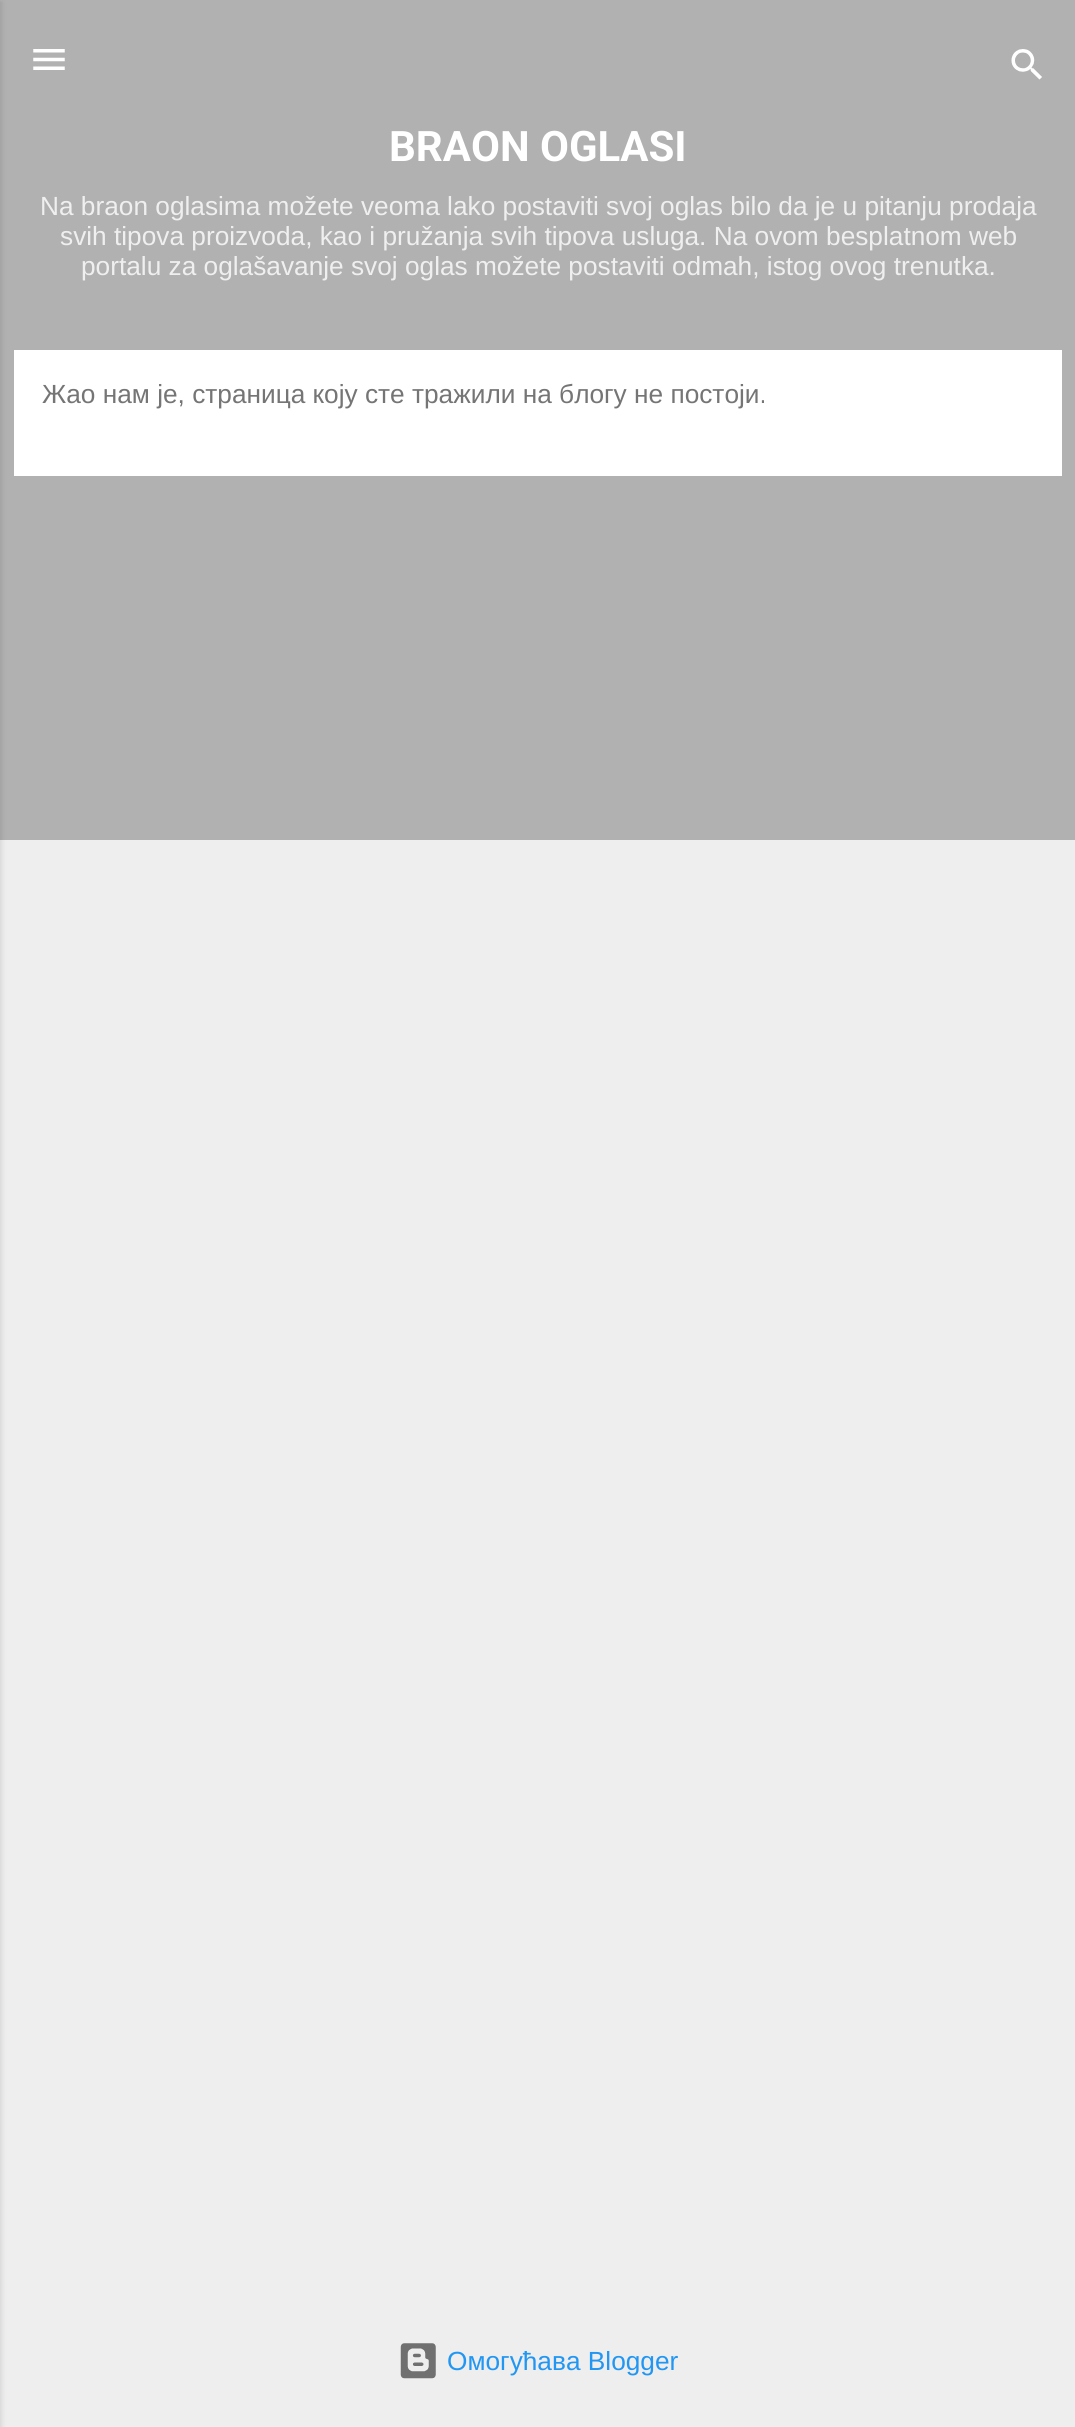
import math
import cairocffi as cairo

surface = cairo.ImageSurface(cairo.FORMAT_RGB24, 1075, 2427)
cr = cairo.Context(surface)
options = cairo.FontOptions()
options.set_hint_metrics(cairo.HINT_METRICS_OFF)
options.set_hint_style(cairo.HINT_STYLE_NONE)
cr.set_font_options(options)
cr.set_miter_limit(4)


def use_color(code):
    cr.set_source_rgb(*(v / 255 for v in bytes.fromhex(code[-6:])))


def round_rect(x, y, w, h, r):
    cr.new_sub_path()
    for i, (u, v) in enumerate([(x + w - r, y + h - r), (x + r, y + h - r), (x + r, y + r), (x + w - r, y + r)]):
        cr.arc(u, v, r, i * math.pi / 2, (i + 1) * math.pi / 2)
    cr.close_path()


def shadow(x, y, w, h, r, blur, alpha):
    cr.push_group_with_content(cairo.CONTENT_ALPHA)
    cr.set_operator(cairo.OPERATOR_SOURCE)
    for i in range(15, -16, -2):
        e = blur * i / 6
        if min(w, h) + 2 * e > 0:
            cr.set_source_rgba(0, 0, 0, alpha * math.erfc((i - 1) / 8.5) / 2)
            round_rect(x - e, y - e, w + 2 * e, h + 2 * e, max(0, min(r + e + blur * .6, min(w, h) / 2 + e)))
            cr.fill()
    cr.mask(cr.pop_group())


def picture(path, x, y, w, h):
    cr.save()
    cr.set_source_surface(cairo.ImageSurface.create_from_png(path), x, y)
    cr.rectangle(x, y, w, h)
    cr.fill()
    cr.restore()


use_color("#eeeeee")
cr.paint()
use_color("#b1b1b1")
cr.rectangle(0, 0, 1075, 840)
cr.fill()
use_color("#000000")
shadow(-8, 2, 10, 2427, 0, 2.5, 0.1)
picture("img1.png", 33, 49, 32, 21)
picture("img2.png", 1011, 49, 31, 31)
cr.select_font_face("Roboto", cairo.FONT_SLANT_NORMAL, cairo.FONT_WEIGHT_BOLD)
cr.set_font_size(42)
use_color("#ffffff")
cr.move_to(389, 161)
cr.show_text("BRAON OGLASI")
cr.select_font_face("Liberation Sans")
cr.set_font_size(26.25)
use_color("#efefef")
cr.move_to(40, 215)
cr.show_text("Na braon oglasima možete veoma lako postaviti svoj oglas bilo da je u pitanju prodaja")
cr.move_to(60, 245)
cr.show_text("svih tipova proizvoda, kao i pružanja svih tipova usluga. Na ovom besplatnom web")
cr.move_to(81, 275)
cr.show_text("portalu za oglašavanje svoj oglas možete postaviti odmah, istog ovog trenutka.")
use_color("#ffffff")
cr.rectangle(14, 350, 1048, 126)
cr.fill()
use_color("#757575")
cr.move_to(42, 403)
cr.show_text("Жао нам је, страница коју сте тражили на блогу не постоји.")
picture("img3.png", 400, 2343, 36, 36)
use_color("#2196f3")
cr.move_to(447, 2370)
cr.show_text("Омогућава Blogger")
surface.write_to_png("result.png")
